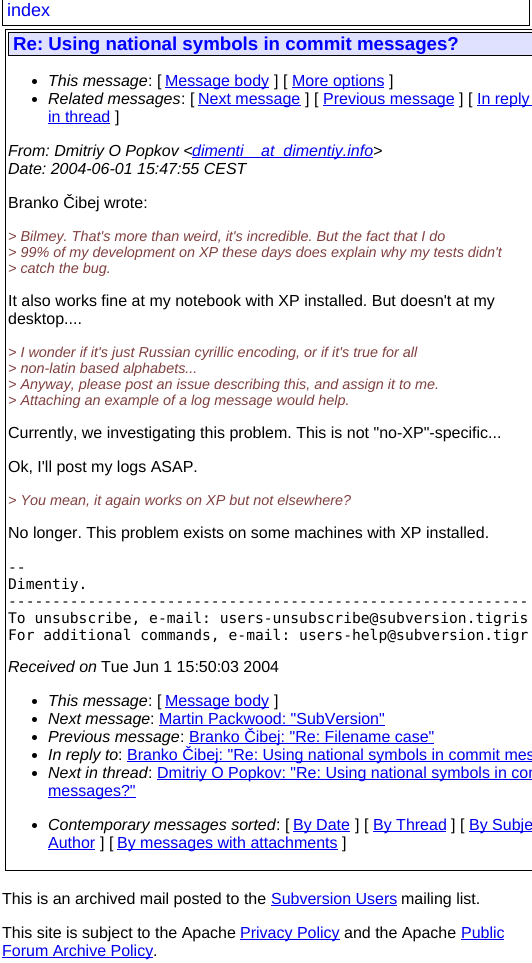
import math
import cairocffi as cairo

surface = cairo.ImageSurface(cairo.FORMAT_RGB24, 532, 963)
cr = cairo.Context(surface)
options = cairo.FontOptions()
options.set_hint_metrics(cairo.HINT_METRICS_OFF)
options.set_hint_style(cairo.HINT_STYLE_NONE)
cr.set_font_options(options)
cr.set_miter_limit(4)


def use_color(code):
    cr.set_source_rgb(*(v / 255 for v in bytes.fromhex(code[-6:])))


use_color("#ffffff")
cr.paint()
cr.rectangle(2.5, -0.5, 527, 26)
use_color("#000000")
cr.set_line_width(1)
cr.stroke()
cr.select_font_face("Liberation Sans")
cr.set_font_size(18)
use_color("#0000ee")
cr.move_to(7, 16)
cr.show_text("index")
cr.rectangle(5.5, 29.5, 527, 841)
use_color("#000000")
cr.stroke()
use_color("#e0e0ff")
cr.rectangle(8.5, 32.5, 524, 23)
cr.fill_preserve()
use_color("#000000")
cr.stroke()
cr.select_font_face("Liberation Sans", cairo.FONT_SLANT_NORMAL, cairo.FONT_WEIGHT_BOLD)
cr.set_font_size(18.7)
use_color("#0000ff")
cr.move_to(13, 50)
cr.show_text("Re: Using national symbols in commit messages?")
use_color("#000000")
cr.new_path()
cr.arc(34.5, 81.5, 2.5, 0, 2 * math.pi)
cr.fill()
cr.select_font_face("Liberation Sans", cairo.FONT_SLANT_ITALIC)
cr.set_font_size(16)
cr.move_to(48, 86)
cr.show_text("This message")
cr.select_font_face("Liberation Sans")
cr.move_to(148, 86)
cr.show_text(": [")
use_color("#0000ee")
cr.rectangle(165, 87, 104, 1)
cr.fill()
cr.move_to(165, 86)
cr.show_text("Message body")
use_color("#000000")
cr.move_to(274, 86)
cr.show_text("] [")
use_color("#0000ee")
cr.rectangle(292, 87, 92, 1)
cr.fill()
cr.move_to(292, 86)
cr.show_text("More options")
use_color("#000000")
cr.move_to(389, 86)
cr.show_text("]")
cr.new_path()
cr.arc(34.5, 99.5, 2.5, 0, 2 * math.pi)
cr.fill()
cr.select_font_face("Liberation Sans", cairo.FONT_SLANT_ITALIC)
cr.move_to(48, 104)
cr.show_text("Related messages")
cr.select_font_face("Liberation Sans")
cr.move_to(181, 104)
cr.show_text(": [")
use_color("#0000ee")
cr.rectangle(198, 105, 103, 1)
cr.fill()
cr.move_to(198, 104)
cr.show_text("Next message")
use_color("#000000")
cr.move_to(305, 104)
cr.show_text("] [")
use_color("#0000ee")
cr.rectangle(323, 105, 131, 1)
cr.fill()
cr.move_to(323, 104)
cr.show_text("Previous message")
use_color("#000000")
cr.move_to(459, 104)
cr.show_text("] [")
use_color("#0000ee")
cr.rectangle(477, 105, 55, 1)
cr.fill()
cr.move_to(477, 104)
cr.show_text("In reply")
cr.move_to(48, 122)
cr.show_text("in thread")
cr.rectangle(48, 123, 62, 1)
cr.fill()
use_color("#000000")
cr.move_to(115, 122)
cr.show_text("]")
cr.select_font_face("Liberation Sans", cairo.FONT_SLANT_ITALIC)
cr.move_to(8, 156)
cr.show_text("From: Dmitriy O Popkov <")
use_color("#0000ee")
cr.rectangle(192, 157, 181, 1)
cr.fill()
cr.move_to(192, 156)
cr.show_text("dimenti")
cr.move_to(261, 156)
cr.show_text("at_dimentiy.info")
use_color("#000000")
cr.move_to(373, 156)
cr.show_text(">")
cr.move_to(8, 174)
cr.show_text("Date: 2004-06-01 15:47:55 CEST")
cr.select_font_face("Liberation Sans")
cr.move_to(8, 208)
cr.show_text("Branko Čibej wrote:")
cr.select_font_face("Liberation Sans", cairo.FONT_SLANT_ITALIC)
cr.set_font_size(14.4)
use_color("#804040")
cr.move_to(8, 241)
cr.show_text("> Bilmey. That's more than weird, it's incredible. But the fact that I do")
cr.move_to(8, 257)
cr.show_text("> 99% of my development on XP these days does explain why my tests didn't")
cr.move_to(8, 273)
cr.show_text("> catch the bug.")
cr.select_font_face("Liberation Sans")
cr.set_font_size(16)
use_color("#000000")
cr.move_to(8, 306)
cr.show_text("It also works fine at my notebook with XP installed. But doesn't at my")
cr.move_to(8, 324)
cr.show_text("desktop....")
cr.select_font_face("Liberation Sans", cairo.FONT_SLANT_ITALIC)
cr.set_font_size(14.4)
use_color("#804040")
cr.move_to(8, 357)
cr.show_text("> I wonder if it's just Russian cyrillic encoding, or if it's true for all")
cr.move_to(8, 373)
cr.show_text("> non-latin based alphabets...")
cr.move_to(8, 389)
cr.show_text("> Anyway, please post an issue describing this, and assign it to me.")
cr.move_to(8, 405)
cr.show_text("> Attaching an example of a log message would help.")
cr.select_font_face("Liberation Sans")
cr.set_font_size(16)
use_color("#000000")
cr.move_to(8, 438)
cr.show_text("Currently, we investigating this problem. This is not \"no-XP\"-specific...")
cr.move_to(8, 472)
cr.show_text("Ok, I'll post my logs ASAP.")
cr.select_font_face("Liberation Sans", cairo.FONT_SLANT_ITALIC)
cr.set_font_size(14.4)
use_color("#804040")
cr.move_to(8, 505)
cr.show_text("> You mean, it again works on XP but not elsewhere?")
cr.select_font_face("Liberation Sans")
cr.set_font_size(16)
use_color("#000000")
cr.move_to(8, 538)
cr.show_text("No longer. This problem exists on some machines with XP installed.")
cr.select_font_face("DejaVu Sans Mono")
cr.set_font_size(14.65)
cr.move_to(8, 572)
cr.show_text("--")
cr.move_to(8, 589)
cr.show_text("Dimentiy.")
cr.move_to(8, 606)
cr.show_text("-----------------------------------------------------------")
cr.move_to(8, 623)
cr.show_text("To unsubscribe, e-mail: users-unsubscribe@subversion.tigris")
cr.move_to(8, 640)
cr.show_text("For additional commands, e-mail: users-help@subversion.tigr")
cr.select_font_face("Liberation Sans", cairo.FONT_SLANT_ITALIC)
cr.set_font_size(16)
cr.move_to(8, 672)
cr.show_text("Received on")
cr.select_font_face("Liberation Sans")
cr.move_to(101, 672)
cr.show_text("Tue Jun 1 15:50:03 2004")
cr.new_path()
cr.arc(34.5, 701.5, 2.5, 0, 2 * math.pi)
cr.fill()
cr.select_font_face("Liberation Sans", cairo.FONT_SLANT_ITALIC)
cr.move_to(48, 706)
cr.show_text("This message")
cr.select_font_face("Liberation Sans")
cr.move_to(148, 706)
cr.show_text(": [")
use_color("#0000ee")
cr.rectangle(165, 707, 104, 1)
cr.fill()
cr.move_to(165, 706)
cr.show_text("Message body")
use_color("#000000")
cr.move_to(274, 706)
cr.show_text("]")
cr.new_path()
cr.arc(34.5, 719.5, 2.5, 0, 2 * math.pi)
cr.fill()
cr.select_font_face("Liberation Sans", cairo.FONT_SLANT_ITALIC)
cr.move_to(48, 724)
cr.show_text("Next message")
cr.select_font_face("Liberation Sans")
cr.move_to(150, 724)
cr.show_text(":")
use_color("#0000ee")
cr.move_to(159, 724)
cr.show_text("Martin Packwood: \"SubVersion\"")
cr.rectangle(159, 725, 226, 1)
cr.fill()
use_color("#000000")
cr.arc(34.5, 737.5, 2.5, 0, 2 * math.pi)
cr.fill()
cr.select_font_face("Liberation Sans", cairo.FONT_SLANT_ITALIC)
cr.move_to(48, 742)
cr.show_text("Previous message")
cr.select_font_face("Liberation Sans")
cr.move_to(180, 742)
cr.show_text(":")
use_color("#0000ee")
cr.rectangle(189, 743, 245, 1)
cr.fill()
cr.move_to(189, 742)
cr.show_text("Branko Čibej: \"Re: Filename case\"")
use_color("#000000")
cr.new_path()
cr.arc(34.5, 755.5, 2.5, 0, 2 * math.pi)
cr.fill()
cr.select_font_face("Liberation Sans", cairo.FONT_SLANT_ITALIC)
cr.move_to(48, 760)
cr.show_text("In reply to")
cr.select_font_face("Liberation Sans")
cr.move_to(118, 760)
cr.show_text(":")
use_color("#0000ee")
cr.rectangle(127, 761, 405, 1)
cr.fill()
cr.move_to(127, 760)
cr.show_text("Branko Čibej: \"Re: Using national symbols in commit mes")
use_color("#000000")
cr.new_path()
cr.arc(34.5, 773.5, 2.5, 0, 2 * math.pi)
cr.fill()
cr.select_font_face("Liberation Sans", cairo.FONT_SLANT_ITALIC)
cr.move_to(48, 778)
cr.show_text("Next in thread")
cr.select_font_face("Liberation Sans")
cr.move_to(148, 778)
cr.show_text(":")
use_color("#0000ee")
cr.rectangle(157, 779, 375, 1)
cr.fill()
cr.move_to(157, 778)
cr.show_text("Dmitriy O Popkov: \"Re: Using national symbols in com")
cr.rectangle(48, 797, 88, 1)
cr.fill()
cr.move_to(48, 796)
cr.show_text("messages?\"")
use_color("#000000")
cr.new_path()
cr.arc(34.5, 825.5, 2.5, 0, 2 * math.pi)
cr.fill()
cr.select_font_face("Liberation Sans", cairo.FONT_SLANT_ITALIC)
cr.move_to(48, 830)
cr.show_text("Contemporary messages sorted")
cr.select_font_face("Liberation Sans")
cr.move_to(276, 830)
cr.show_text(": [")
use_color("#0000ee")
cr.rectangle(293, 831, 57, 1)
cr.fill()
cr.move_to(293, 830)
cr.show_text("By Date")
use_color("#000000")
cr.move_to(355, 830)
cr.show_text("] [")
use_color("#0000ee")
cr.rectangle(373, 831, 73, 1)
cr.fill()
cr.move_to(373, 830)
cr.show_text("By Thread")
use_color("#000000")
cr.move_to(451, 830)
cr.show_text("] [")
use_color("#0000ee")
cr.rectangle(469, 831, 63, 1)
cr.fill()
cr.move_to(469, 830)
cr.show_text("By Subje")
cr.move_to(48, 848)
cr.show_text("Author")
cr.rectangle(48, 849, 47, 1)
cr.fill()
use_color("#000000")
cr.move_to(100, 848)
cr.show_text("] [")
use_color("#0000ee")
cr.rectangle(117, 849, 221, 1)
cr.fill()
cr.move_to(117, 848)
cr.show_text("By messages with attachments")
use_color("#000000")
cr.move_to(342, 848)
cr.show_text("]")
cr.move_to(2, 904)
cr.show_text("This is an archived mail posted to the")
use_color("#0000ee")
cr.move_to(271, 904)
cr.show_text("Subversion Users")
cr.rectangle(271, 905, 126, 1)
cr.fill()
use_color("#000000")
cr.move_to(401, 904)
cr.show_text("mailing list.")
cr.move_to(2, 938)
cr.show_text("This site is subject to the Apache")
use_color("#0000ee")
cr.rectangle(240, 939, 100, 1)
cr.fill()
cr.move_to(240, 938)
cr.show_text("Privacy Policy")
use_color("#000000")
cr.move_to(344, 938)
cr.show_text("and the Apache")
use_color("#0000ee")
cr.move_to(461, 938)
cr.show_text("Public")
cr.rectangle(461, 939, 43, 1)
cr.fill()
cr.rectangle(2, 957, 151, 1)
cr.fill()
cr.move_to(2, 956)
cr.show_text("Forum Archive Policy")
use_color("#000000")
cr.move_to(153, 956)
cr.show_text(".")
surface.write_to_png("result.png")
